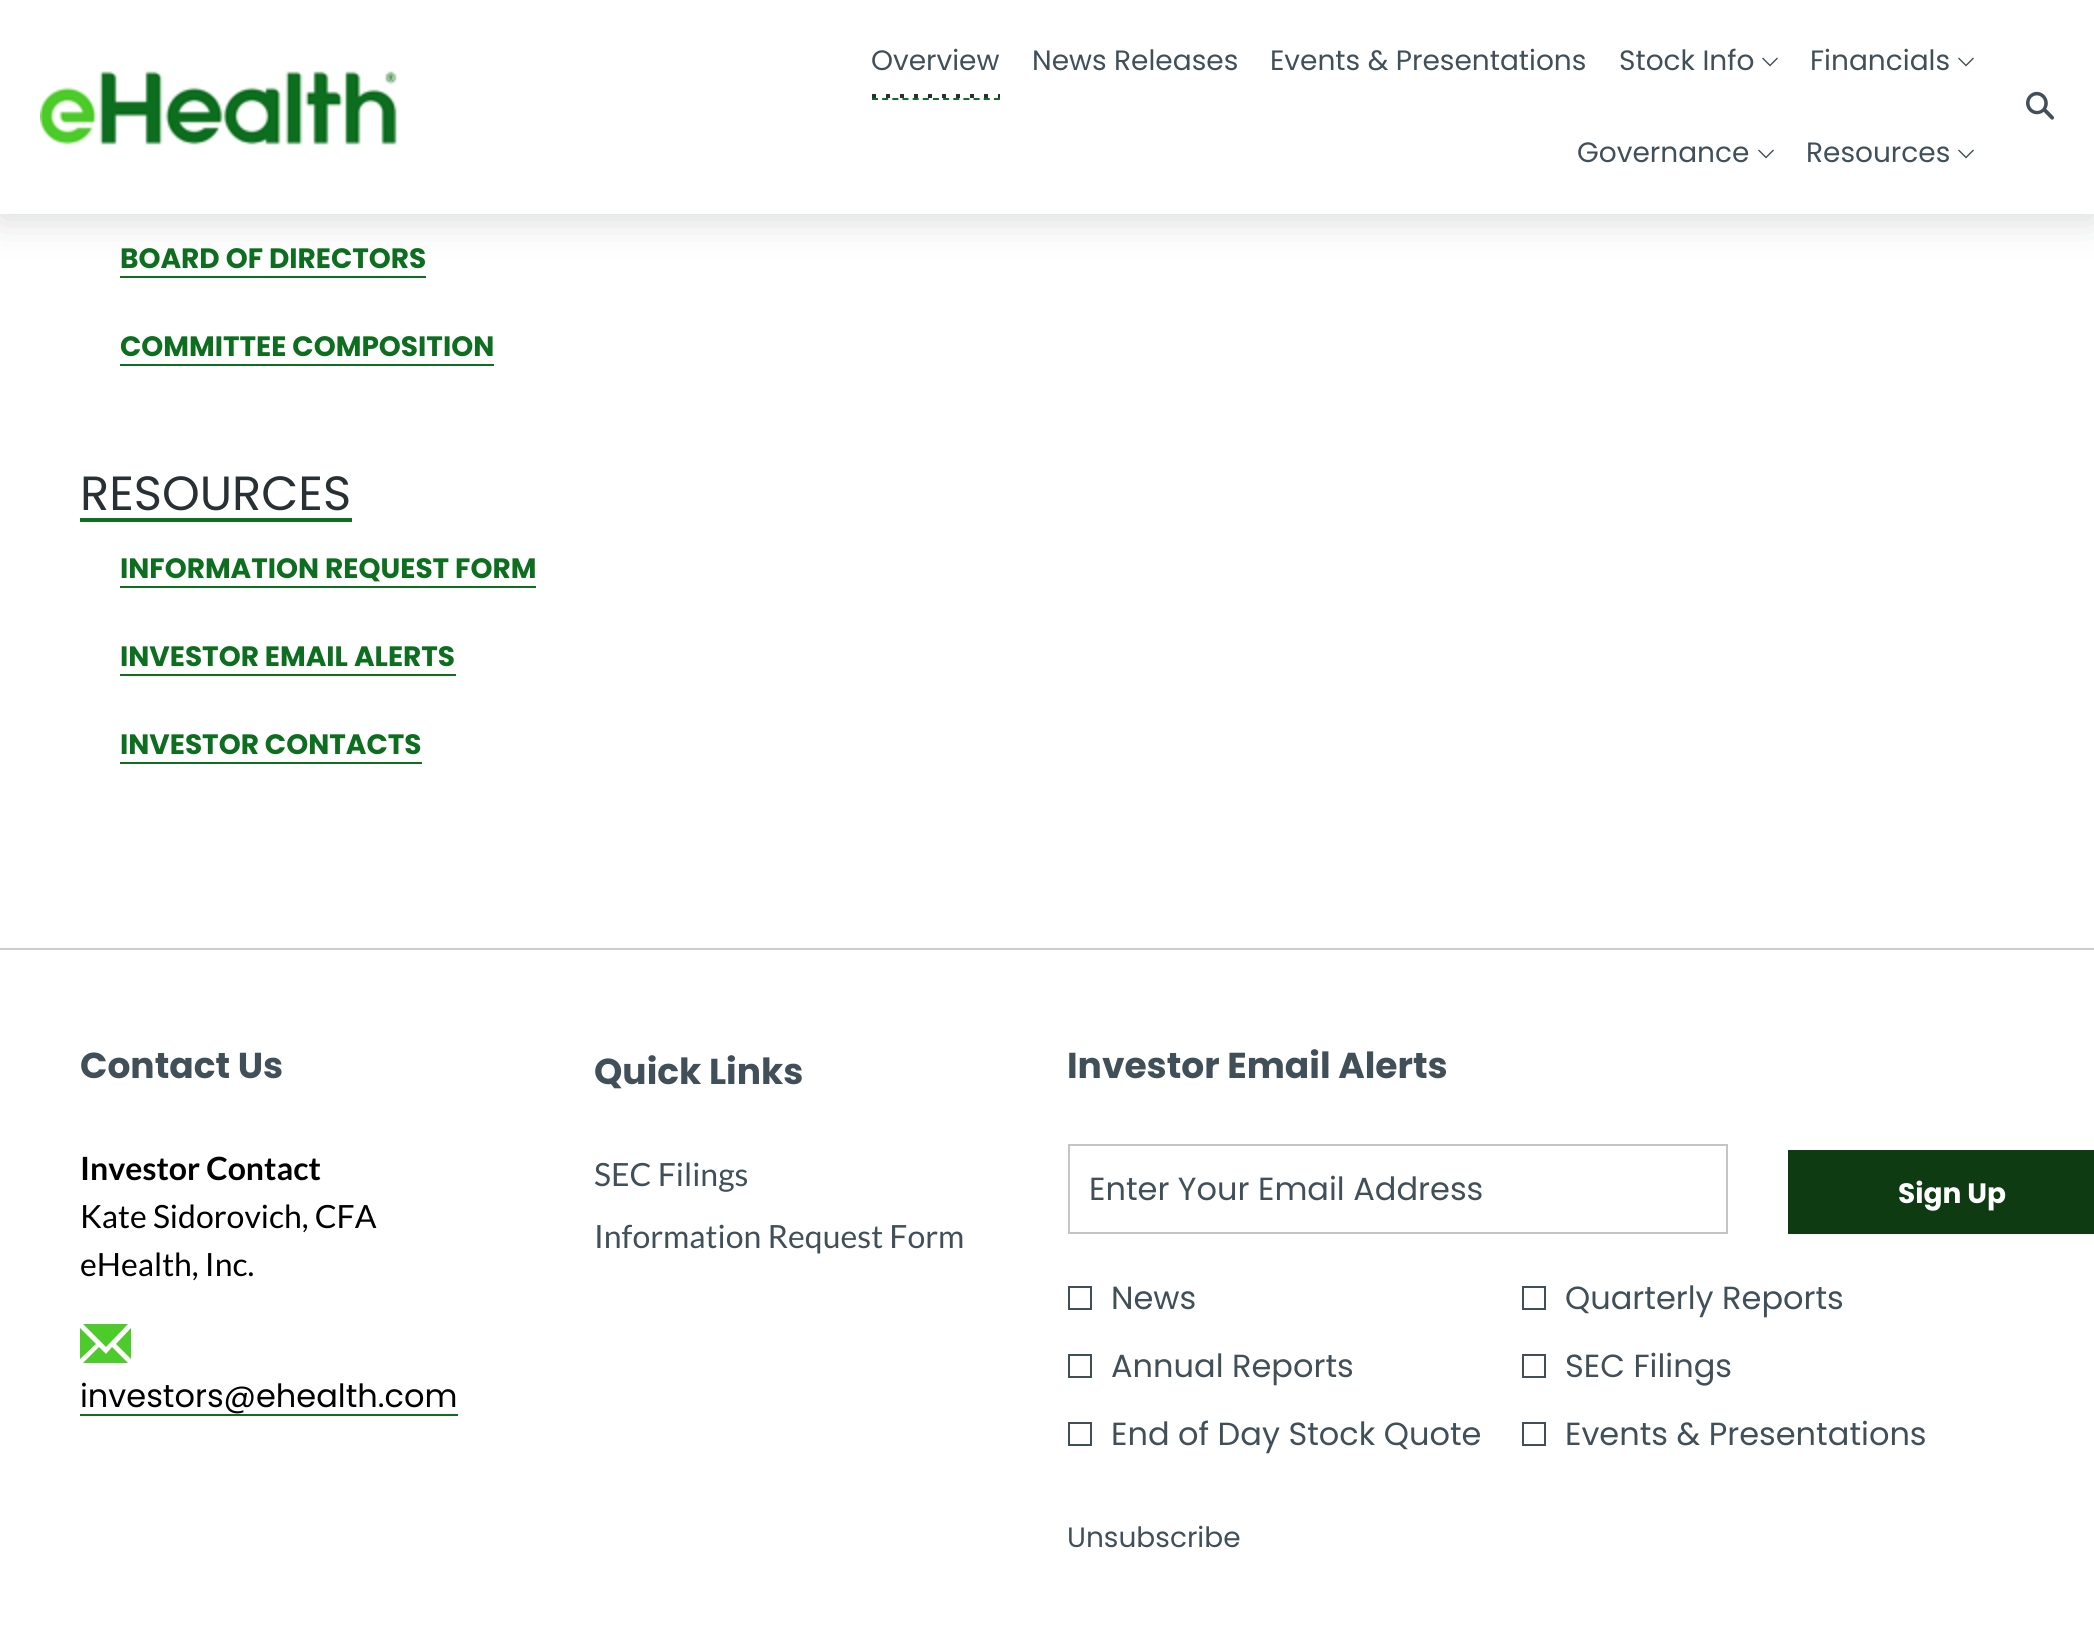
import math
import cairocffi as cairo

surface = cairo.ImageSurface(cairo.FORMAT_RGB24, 2094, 1652)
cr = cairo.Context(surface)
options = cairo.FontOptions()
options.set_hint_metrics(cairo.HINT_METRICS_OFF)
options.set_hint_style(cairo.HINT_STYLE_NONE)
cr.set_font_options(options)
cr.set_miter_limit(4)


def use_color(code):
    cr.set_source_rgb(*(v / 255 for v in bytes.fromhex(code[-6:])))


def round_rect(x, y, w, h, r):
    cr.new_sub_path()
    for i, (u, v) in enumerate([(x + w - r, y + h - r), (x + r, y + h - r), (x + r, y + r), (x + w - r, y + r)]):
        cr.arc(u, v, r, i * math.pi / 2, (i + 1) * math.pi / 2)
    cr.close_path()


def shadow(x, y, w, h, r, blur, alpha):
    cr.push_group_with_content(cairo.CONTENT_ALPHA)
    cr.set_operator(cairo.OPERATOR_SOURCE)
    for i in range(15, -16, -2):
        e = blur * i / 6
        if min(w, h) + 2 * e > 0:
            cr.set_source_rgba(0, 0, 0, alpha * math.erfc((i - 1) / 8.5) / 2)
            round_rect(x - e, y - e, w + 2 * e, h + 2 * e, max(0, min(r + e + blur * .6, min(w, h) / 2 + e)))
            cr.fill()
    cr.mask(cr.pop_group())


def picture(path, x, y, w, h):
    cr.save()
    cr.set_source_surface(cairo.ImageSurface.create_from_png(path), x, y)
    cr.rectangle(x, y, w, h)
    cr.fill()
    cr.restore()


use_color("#ffffff")
cr.paint()
use_color("#0c6e1e")
cr.rectangle(120, 276, 306, 2)
cr.fill()
use_color("#283033")
shadow(0, 4, 2094, 214, 0, 20, 0.2)
use_color("#ffffff")
cr.rectangle(0, 0, 2094, 214)
cr.fill()
picture("img1.png", 40, 71, 357, 74)
use_color("#283033")
cr.rectangle(872, 94, 4, 4)
cr.fill()
cr.rectangle(886, 94, 4, 4)
cr.fill()
cr.rectangle(900, 94, 4, 4)
cr.fill()
cr.rectangle(914, 94, 4, 4)
cr.fill()
cr.rectangle(928, 94, 4, 4)
cr.fill()
cr.rectangle(942, 94, 4, 4)
cr.fill()
cr.rectangle(956, 94, 4, 4)
cr.fill()
cr.rectangle(970, 94, 4, 4)
cr.fill()
cr.rectangle(984, 94, 4, 4)
cr.fill()
cr.rectangle(998, 94, 2, 4)
cr.fill()
cr.new_path()
cr.move_to(872, 99)
cr.line_to(1000, 99)
use_color("#0c6e1e")
cr.set_dash([6, 4.16])
cr.stroke()
cr.select_font_face("Poppins")
cr.set_font_size(28)
use_color("#415058")
cr.move_to(871, 70)
cr.show_text("Overview")
cr.move_to(1032, 70)
cr.show_text("News Releases")
cr.move_to(1270, 70)
cr.show_text("Events & Presentations")
cr.move_to(1619, 70)
cr.show_text("Stock Info")
picture("img2.png", 1762, 57, 16, 10)
cr.move_to(1810, 70)
cr.show_text("Financials")
picture("img2.png", 1958, 57, 16, 10)
cr.move_to(1577, 162)
cr.show_text("Governance")
picture("img2.png", 1758, 149, 16, 10)
cr.move_to(1806, 162)
cr.show_text("Resources")
picture("img2.png", 1958, 149, 16, 10)
picture("img3.png", 2026, 91, 28, 29)
cr.select_font_face("Poppins", cairo.FONT_SLANT_NORMAL, cairo.FONT_WEIGHT_BOLD)
use_color("#0c6e1e")
cr.move_to(120, 268)
cr.show_text("BOARD OF DIRECTORS")
cr.move_to(120, 356)
cr.show_text("COMMITTEE COMPOSITION")
cr.rectangle(120, 364, 374, 2)
cr.fill()
cr.select_font_face("Poppins")
cr.set_font_size(48)
use_color("#283033")
cr.move_to(80, 510)
cr.show_text("RESOURCES")
use_color("#0c6e1e")
cr.rectangle(80, 518, 272, 4)
cr.fill()
cr.select_font_face("Poppins", cairo.FONT_SLANT_NORMAL, cairo.FONT_WEIGHT_BOLD)
cr.set_font_size(28)
cr.move_to(120, 578)
cr.show_text("INFORMATION REQUEST FORM")
cr.rectangle(120, 586, 416, 2)
cr.fill()
cr.move_to(120, 666)
cr.show_text("INVESTOR EMAIL ALERTS")
cr.rectangle(120, 674, 336, 2)
cr.fill()
cr.move_to(120, 754)
cr.show_text("INVESTOR CONTACTS")
cr.rectangle(120, 762, 302, 2)
cr.fill()
use_color("#cccccc")
cr.rectangle(0, 948, 2094, 2)
cr.fill()
cr.set_font_size(36)
use_color("#415058")
cr.move_to(80, 1078)
cr.show_text("Contact Us")
cr.select_font_face("Lato", cairo.FONT_SLANT_NORMAL, cairo.FONT_WEIGHT_BOLD)
cr.set_font_size(32)
use_color("#000000")
cr.move_to(80, 1180)
cr.show_text("Investor Contact")
cr.select_font_face("Lato")
cr.move_to(80, 1228)
cr.show_text("Kate Sidorovich, CFA")
cr.move_to(80, 1276)
cr.show_text("eHealth, Inc.")
use_color("#4dcb2a")
cr.new_path()
cr.move_to(116, 1344)
cr.line_to(131, 1359)
cr.line_to(131, 1328)
cr.close_path()
cr.move_to(106, 1347)
cr.line_to(128, 1324)
cr.line_to(83, 1324)
cr.close_path()
cr.move_to(80, 1328)
cr.line_to(80, 1359)
cr.line_to(96, 1344)
cr.close_path()
cr.move_to(112, 1347)
cr.line_to(106, 1354)
cr.line_to(99, 1347)
cr.line_to(83, 1363)
cr.line_to(128, 1363)
cr.close_path()
cr.fill()
cr.select_font_face("Poppins")
use_color("#000000")
cr.move_to(80, 1407)
cr.show_text("investors@ehealth.com")
use_color("#0c6e1e")
cr.rectangle(80, 1414, 378, 2)
cr.fill()
cr.select_font_face("Poppins", cairo.FONT_SLANT_NORMAL, cairo.FONT_WEIGHT_BOLD)
cr.set_font_size(36)
use_color("#415058")
cr.move_to(594, 1084)
cr.show_text("Quick Links")
cr.select_font_face("Lato")
cr.set_font_size(32)
cr.move_to(594, 1186)
cr.show_text("SEC Filings")
cr.move_to(594, 1248)
cr.show_text("Information Request Form")
cr.select_font_face("Poppins", cairo.FONT_SLANT_NORMAL, cairo.FONT_WEIGHT_BOLD)
cr.set_font_size(36)
cr.move_to(1067, 1078)
cr.show_text("Investor Email Alerts")
cr.rectangle(1069, 1145, 658, 88)
use_color("#c4c4c4")
cr.set_dash([])
cr.stroke()
cr.select_font_face("Poppins")
cr.set_font_size(32)
use_color("#415058")
cr.move_to(1089, 1200)
cr.show_text("Enter Your Email Address")
use_color("#0e3b12")
cr.rectangle(1788, 1150, 306, 84)
cr.fill()
cr.select_font_face("Poppins", cairo.FONT_SLANT_NORMAL, cairo.FONT_WEIGHT_BOLD)
cr.set_font_size(28)
use_color("#ffffff")
cr.move_to(1898, 1203)
cr.show_text("Sign Up")
cr.rectangle(1069, 1287, 22, 22)
use_color("#415058")
cr.stroke()
cr.select_font_face("Poppins")
cr.set_font_size(32)
cr.move_to(1111, 1309)
cr.show_text("News")
cr.rectangle(1523, 1287, 22, 22)
cr.stroke()
cr.move_to(1565, 1309)
cr.show_text("Quarterly Reports")
cr.rectangle(1069, 1355, 22, 22)
cr.stroke()
cr.move_to(1111, 1377)
cr.show_text("Annual Reports")
cr.rectangle(1523, 1355, 22, 22)
cr.stroke()
cr.move_to(1565, 1377)
cr.show_text("SEC Filings")
cr.rectangle(1069, 1423, 22, 22)
cr.stroke()
cr.move_to(1111, 1445)
cr.show_text("End of Day Stock Quote")
cr.rectangle(1523, 1423, 22, 22)
cr.stroke()
cr.move_to(1565, 1445)
cr.show_text("Events & Presentations")
cr.set_font_size(28)
cr.move_to(1067, 1547)
cr.show_text("Unsubscribe")
surface.write_to_png("result.png")
